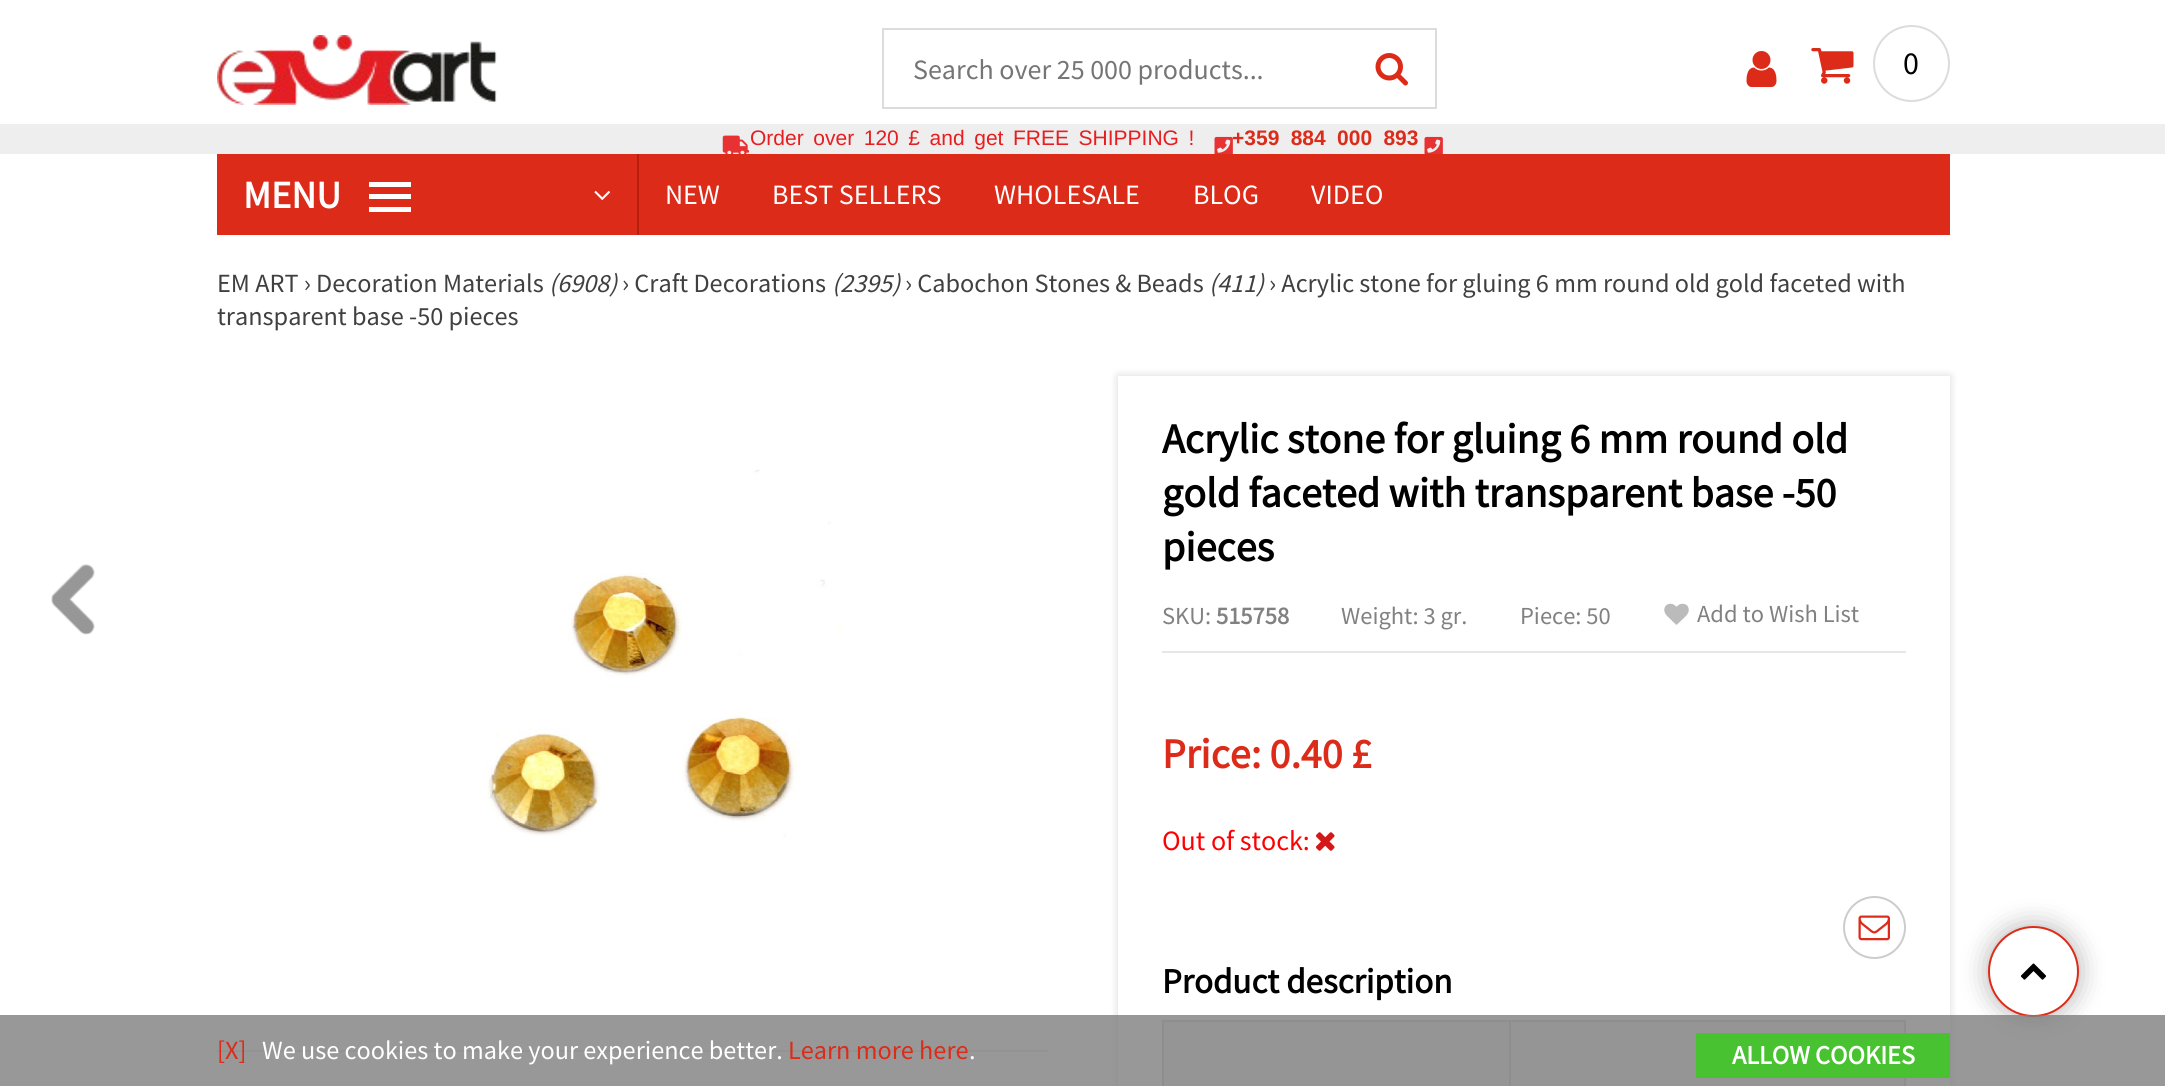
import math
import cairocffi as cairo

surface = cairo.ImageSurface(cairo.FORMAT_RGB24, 2165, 1086)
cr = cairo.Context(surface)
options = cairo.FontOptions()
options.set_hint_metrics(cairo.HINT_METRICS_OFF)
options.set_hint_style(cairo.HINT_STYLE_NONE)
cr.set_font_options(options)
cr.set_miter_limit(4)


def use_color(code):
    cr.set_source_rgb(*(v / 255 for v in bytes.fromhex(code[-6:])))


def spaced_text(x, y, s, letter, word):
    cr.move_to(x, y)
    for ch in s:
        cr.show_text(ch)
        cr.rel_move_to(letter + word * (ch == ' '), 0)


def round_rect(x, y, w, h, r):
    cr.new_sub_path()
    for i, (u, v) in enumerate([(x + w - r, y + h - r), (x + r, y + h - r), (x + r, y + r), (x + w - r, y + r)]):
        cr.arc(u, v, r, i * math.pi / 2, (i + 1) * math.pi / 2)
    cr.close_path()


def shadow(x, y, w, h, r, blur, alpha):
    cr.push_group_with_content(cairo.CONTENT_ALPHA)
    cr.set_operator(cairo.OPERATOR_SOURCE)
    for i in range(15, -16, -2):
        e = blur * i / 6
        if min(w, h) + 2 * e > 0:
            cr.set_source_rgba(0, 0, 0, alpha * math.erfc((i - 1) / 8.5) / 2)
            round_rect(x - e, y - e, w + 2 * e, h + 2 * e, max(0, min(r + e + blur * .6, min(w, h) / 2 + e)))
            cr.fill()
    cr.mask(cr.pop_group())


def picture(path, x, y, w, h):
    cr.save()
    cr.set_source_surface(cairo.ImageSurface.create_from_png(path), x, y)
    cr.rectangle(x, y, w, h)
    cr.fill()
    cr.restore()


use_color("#ffffff")
cr.paint()
picture("img1.png", 217, 35, 280, 70)
cr.rectangle(883, 29, 553, 79)
use_color("#dcdcdc")
cr.stroke()
cr.select_font_face("Source Sans Pro")
cr.set_font_size(28)
use_color("#757575")
cr.move_to(913, 79)
cr.show_text("Search over 25 000 products...")
picture("img2.png", 1375, 53, 33, 33)
picture("img3.png", 1746, 51, 31, 36)
picture("img4.png", 1811, 48, 43, 36)
cr.arc(1911.5, 63.5, 37.5, 0, 2 * math.pi)
use_color("#dcdcdc")
cr.stroke()
cr.set_font_size(32)
use_color("#000000")
cr.move_to(1903, 74)
cr.show_text("0")
use_color("#eeeeee")
cr.rectangle(0, 124, 2165, 30)
cr.fill()
picture("img5.png", 722, 135, 27, 19)
cr.select_font_face("Liberation Sans")
cr.set_font_size(21)
use_color("#e81d1f")
spaced_text(750, 145, "Order over 120 £ and get FREE SHIPPING !", 0, 3.75)
picture("img6.png", 1214, 136, 19, 18)
cr.select_font_face("Liberation Sans", cairo.FONT_SLANT_NORMAL, cairo.FONT_WEIGHT_BOLD)
use_color("#dc2b19")
spaced_text(1232, 145, "+359 884 000 893", 0, 5.5)
picture("img6.png", 1424, 136, 19, 18)
cr.rectangle(217, 154, 1733, 81)
cr.fill()
use_color("#b71e0e")
cr.rectangle(637, 154, 2, 81)
cr.fill()
cr.select_font_face("Source Sans Pro", cairo.FONT_SLANT_NORMAL, cairo.FONT_WEIGHT_BOLD)
cr.set_font_size(38.5)
use_color("#ffffff")
cr.move_to(243, 208)
cr.show_text("MENU")
cr.rectangle(369, 194, 42, 5)
cr.fill()
cr.rectangle(369, 182, 42, 5)
cr.fill()
cr.rectangle(369, 207, 42, 5)
cr.fill()
picture("img7.png", 594, 191, 16, 9)
cr.select_font_face("Source Sans Pro")
cr.set_font_size(28)
cr.move_to(665, 204)
cr.show_text("NEW")
cr.move_to(772, 204)
cr.show_text("BEST SELLERS")
cr.move_to(994, 204)
cr.show_text("WHOLESALE")
cr.move_to(1193, 204)
cr.show_text("BLOG")
cr.move_to(1311, 204)
cr.show_text("VIDEO")
picture("img8.png", 51, 564, 44, 71)
cr.set_font_size(26.25)
use_color("#404040")
cr.move_to(217, 292)
cr.show_text("EM ART › Decoration Materials")
cr.select_font_face("Source Sans Pro", cairo.FONT_SLANT_ITALIC)
cr.move_to(549, 292)
cr.show_text("(6908)")
cr.select_font_face("Source Sans Pro")
cr.move_to(622, 292)
cr.show_text("› Craft Decorations")
cr.select_font_face("Source Sans Pro", cairo.FONT_SLANT_ITALIC)
cr.move_to(832, 292)
cr.show_text("(2395)")
cr.select_font_face("Source Sans Pro")
cr.move_to(905, 292)
cr.show_text("› Cabochon Stones & Beads")
cr.select_font_face("Source Sans Pro", cairo.FONT_SLANT_ITALIC)
cr.move_to(1209, 292)
cr.show_text("(411)")
cr.select_font_face("Source Sans Pro")
cr.move_to(1269, 292)
cr.show_text("› Acrylic stone for gluing 6 mm round old gold faceted with")
cr.move_to(217, 325)
cr.show_text("transparent base -50 pieces")
picture("img9.png", 486, 469, 357, 368)
use_color("#e6e6e6")
cr.rectangle(217, 1050, 831, 2)
cr.fill()
cr.save()
cr.set_fill_rule(cairo.FILL_RULE_EVEN_ODD)
cr.new_path()
cr.move_to(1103, 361)
cr.line_to(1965, 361)
cr.line_to(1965, 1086)
cr.line_to(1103, 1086)
cr.close_path()
cr.move_to(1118, 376)
cr.line_to(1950, 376)
cr.line_to(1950, 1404)
cr.line_to(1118, 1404)
cr.close_path()
cr.clip()
use_color("#000000")
shadow(1118, 376, 832, 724, 0, 4.5, 0.15)
cr.restore()
cr.select_font_face("Source Sans Pro", cairo.FONT_SLANT_NORMAL, cairo.FONT_WEIGHT_BOLD)
cr.set_font_size(42)
use_color("#000000")
cr.move_to(1162, 453)
cr.show_text("Acrylic stone for gluing 6 mm round old")
cr.move_to(1162, 507)
cr.show_text("gold faceted with transparent base -50")
cr.move_to(1162, 561)
cr.show_text("pieces")
use_color("#e6e6e6")
cr.rectangle(1162, 651, 744, 2)
cr.fill()
cr.select_font_face("Source Sans Pro")
cr.set_font_size(24.5)
use_color("#818181")
cr.move_to(1162, 624)
cr.show_text("SKU:")
cr.select_font_face("Source Sans Pro", cairo.FONT_SLANT_NORMAL, cairo.FONT_WEIGHT_BOLD)
cr.move_to(1216, 624)
cr.show_text("515758")
cr.select_font_face("Source Sans Pro")
cr.move_to(1341, 624)
cr.show_text("Weight: 3 gr.")
cr.move_to(1520, 624)
cr.show_text("Piece: 50")
picture("img10.png", 1664, 603, 25, 22)
cr.move_to(1697, 622)
cr.show_text("Add to Wish List")
cr.select_font_face("Source Sans Pro", cairo.FONT_SLANT_NORMAL, cairo.FONT_WEIGHT_BOLD)
cr.set_font_size(42)
use_color("#dc2b19")
cr.move_to(1162, 768)
cr.show_text("Price: 0.40 £")
cr.select_font_face("Source Sans Pro")
cr.set_font_size(28)
use_color("#ff0000")
cr.move_to(1162, 850)
cr.show_text("Out of stock:")
picture("img11.png", 1316, 832, 19, 19)
cr.arc(1874.5, 927.5, 30.5, 0, 2 * math.pi)
use_color("#cccccc")
cr.stroke()
picture("img12.png", 1858, 915, 32, 26)
cr.select_font_face("Source Sans Pro", cairo.FONT_SLANT_NORMAL, cairo.FONT_WEIGHT_BOLD)
cr.set_font_size(35)
use_color("#000000")
cr.move_to(1162, 993)
cr.show_text("Product description")
use_color("#f0f0f0")
cr.rectangle(1164, 1022, 345, 64)
cr.fill()
use_color("#cccccc")
cr.rectangle(1509, 1020, 397, 2)
cr.fill()
cr.rectangle(1509, 1020, 2, 66)
cr.fill()
cr.rectangle(1162, 1020, 348, 2)
cr.fill()
cr.rectangle(1162, 1020, 2, 66)
cr.fill()
use_color("#f0f0f0")
cr.rectangle(1511, 1022, 393, 64)
cr.fill()
use_color("#cccccc")
cr.rectangle(1904, 1020, 2, 66)
cr.fill()
use_color("#000000")
shadow(1988, 926, 91, 91, 45.5, 13, 0.3)
use_color("#ffffff")
cr.arc(2033.5, 971.5, 44.5, 0, 2 * math.pi)
cr.fill_preserve()
use_color("#dc2b19")
cr.stroke()
cr.set_source_rgba(0.498, 0.498, 0.498, 0.8)
cr.rectangle(0, 1015, 2165, 71)
cr.fill()
cr.select_font_face("Source Sans Pro")
cr.set_font_size(26.25)
use_color("#dc2b19")
cr.move_to(217, 1059)
cr.show_text("[X]")
use_color("#ffffff")
cr.move_to(262, 1059)
cr.show_text("We use cookies to make your experience better.")
use_color("#dc2b19")
cr.move_to(788, 1059)
cr.show_text("Learn more here")
use_color("#ffffff")
cr.move_to(969, 1059)
cr.show_text(".")
use_color("#48c231")
cr.rectangle(1696, 1033, 254, 45)
cr.fill()
cr.select_font_face("Source Sans Pro", cairo.FONT_SLANT_NORMAL, cairo.FONT_WEIGHT_BOLD)
use_color("#ffffff")
cr.move_to(1732, 1064)
cr.show_text("ALLOW COOKIES")
picture("img13.png", 2020, 963, 27, 17)
surface.write_to_png("result.png")
